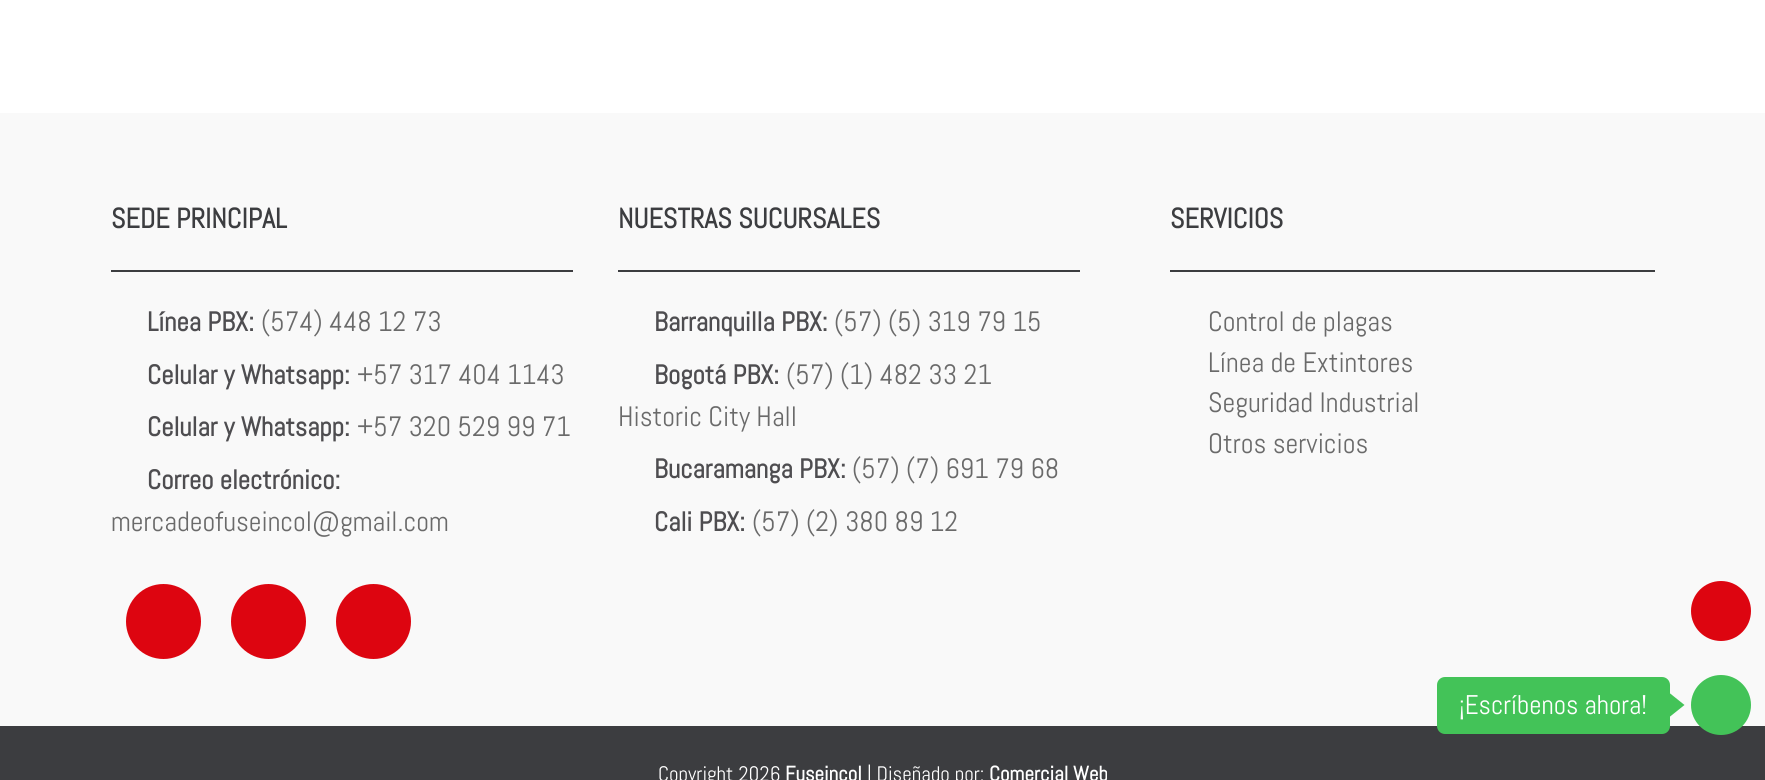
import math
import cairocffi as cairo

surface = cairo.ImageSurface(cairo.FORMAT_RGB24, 1765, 780)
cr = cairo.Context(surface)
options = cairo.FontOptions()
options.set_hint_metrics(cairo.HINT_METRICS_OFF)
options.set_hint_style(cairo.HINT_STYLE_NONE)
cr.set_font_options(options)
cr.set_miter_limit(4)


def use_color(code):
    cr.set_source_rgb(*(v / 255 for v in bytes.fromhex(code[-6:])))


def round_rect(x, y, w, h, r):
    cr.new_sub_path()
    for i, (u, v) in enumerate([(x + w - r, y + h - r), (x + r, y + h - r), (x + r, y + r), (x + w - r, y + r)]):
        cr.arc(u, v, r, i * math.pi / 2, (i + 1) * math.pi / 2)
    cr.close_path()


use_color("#ffffff")
cr.paint()
use_color("#f9f9f9")
cr.rectangle(0, 113, 1765, 613)
cr.fill()
use_color("#3c3d40")
cr.rectangle(111, 270, 462, 2)
cr.fill()
cr.select_font_face("Abel", cairo.FONT_SLANT_NORMAL, cairo.FONT_WEIGHT_BOLD)
cr.set_font_size(28)
cr.move_to(111, 228)
cr.show_text("SEDE PRINCIPAL")
cr.set_font_size(27)
use_color("#4e4d50")
cr.move_to(147, 331)
cr.show_text("Línea PBX:")
cr.select_font_face("Abel")
cr.set_font_size(28)
use_color("#6a6a6a")
cr.move_to(261, 331)
cr.show_text("(574) 448 12 73")
cr.select_font_face("Abel", cairo.FONT_SLANT_NORMAL, cairo.FONT_WEIGHT_BOLD)
cr.set_font_size(27)
use_color("#4e4d50")
cr.move_to(147, 384)
cr.show_text("Celular y Whatsapp:")
cr.select_font_face("Abel")
cr.set_font_size(28)
use_color("#6a6a6a")
cr.move_to(357, 384)
cr.show_text("+57 317 404 1143")
cr.select_font_face("Abel", cairo.FONT_SLANT_NORMAL, cairo.FONT_WEIGHT_BOLD)
cr.set_font_size(27)
use_color("#4e4d50")
cr.move_to(147, 436)
cr.show_text("Celular y Whatsapp:")
cr.select_font_face("Abel")
cr.set_font_size(28)
use_color("#6a6a6a")
cr.move_to(357, 436)
cr.show_text("+57 320 529 99 71")
cr.select_font_face("Abel", cairo.FONT_SLANT_NORMAL, cairo.FONT_WEIGHT_BOLD)
cr.set_font_size(27)
use_color("#4e4d50")
cr.move_to(147, 489)
cr.show_text("Correo electrónico:")
cr.select_font_face("Abel")
cr.set_font_size(28)
use_color("#6a6a6a")
cr.move_to(111, 531)
cr.show_text("mercadeofuseincol@gmail.com")
use_color("#3c3d40")
cr.rectangle(618, 270, 462, 2)
cr.fill()
cr.select_font_face("Abel", cairo.FONT_SLANT_NORMAL, cairo.FONT_WEIGHT_BOLD)
cr.move_to(618, 228)
cr.show_text("NUESTRAS SUCURSALES")
cr.set_font_size(27)
use_color("#4e4d50")
cr.move_to(654, 331)
cr.show_text("Barranquilla PBX:")
cr.select_font_face("Abel")
cr.set_font_size(28)
use_color("#6a6a6a")
cr.move_to(834, 331)
cr.show_text("(57) (5) 319 79 15")
cr.select_font_face("Abel", cairo.FONT_SLANT_NORMAL, cairo.FONT_WEIGHT_BOLD)
cr.set_font_size(27)
use_color("#4e4d50")
cr.move_to(654, 384)
cr.show_text("Bogotá PBX:")
cr.select_font_face("Abel")
cr.set_font_size(28)
use_color("#6a6a6a")
cr.move_to(786, 384)
cr.show_text("(57) (1) 482 33 21")
cr.move_to(618, 426)
cr.show_text("Historic City Hall")
cr.select_font_face("Abel", cairo.FONT_SLANT_NORMAL, cairo.FONT_WEIGHT_BOLD)
cr.set_font_size(27)
use_color("#4e4d50")
cr.move_to(654, 478)
cr.show_text("Bucaramanga PBX:")
cr.select_font_face("Abel")
cr.set_font_size(28)
use_color("#6a6a6a")
cr.move_to(852, 478)
cr.show_text("(57) (7) 691 79 68")
cr.select_font_face("Abel", cairo.FONT_SLANT_NORMAL, cairo.FONT_WEIGHT_BOLD)
cr.set_font_size(27)
use_color("#4e4d50")
cr.move_to(654, 531)
cr.show_text("Cali PBX:")
cr.select_font_face("Abel")
cr.set_font_size(28)
use_color("#6a6a6a")
cr.move_to(752, 531)
cr.show_text("(57) (2) 380 89 12")
use_color("#dd0510")
cr.new_path()
cr.arc(163.5, 621.5, 37.5, 0, 2 * math.pi)
cr.fill()
cr.arc(268.5, 621.5, 37.5, 0, 2 * math.pi)
cr.fill()
cr.arc(373.5, 621.5, 37.5, 0, 2 * math.pi)
cr.fill()
use_color("#3c3d40")
cr.rectangle(1170, 270, 485, 2)
cr.fill()
cr.select_font_face("Abel", cairo.FONT_SLANT_NORMAL, cairo.FONT_WEIGHT_BOLD)
cr.move_to(1170, 228)
cr.show_text("SERVICIOS")
cr.select_font_face("Abel")
use_color("#6a6a6a")
cr.move_to(1208, 331)
cr.show_text("Control de plagas")
cr.move_to(1208, 372)
cr.show_text("Línea de Extintores")
cr.move_to(1208, 412)
cr.show_text("Seguridad Industrial")
cr.move_to(1208, 453)
cr.show_text("Otros servicios")
use_color("#3c3d40")
cr.rectangle(0, 726, 1765, 54)
cr.fill()
cr.set_font_size(21)
use_color("#ffffff")
cr.move_to(658, 781)
cr.show_text("Copyright 2026")
cr.select_font_face("Abel", cairo.FONT_SLANT_NORMAL, cairo.FONT_WEIGHT_BOLD)
cr.move_to(785, 781)
cr.show_text("Fuseincol")
cr.select_font_face("Abel")
cr.move_to(867, 781)
cr.show_text("| Diseñado por:")
cr.select_font_face("Abel", cairo.FONT_SLANT_NORMAL, cairo.FONT_WEIGHT_BOLD)
cr.move_to(989, 781)
cr.show_text("Comercial Web")
use_color("#dd0510")
cr.new_path()
cr.arc(1721, 611, 30, 0, 2 * math.pi)
cr.fill()
use_color("#43c358")
round_rect(1437, 677, 233, 57, 8)
cr.fill()
cr.select_font_face("Abel")
cr.set_font_size(27)
use_color("#ffffff")
cr.move_to(1459, 714)
cr.show_text("¡Escríbenos ahora!")
use_color("#43c358")
cr.new_path()
cr.move_to(1669.5, 717)
cr.line_to(1669.5, 693)
cr.line_to(1684.5, 705)
cr.close_path()
cr.fill()
cr.arc(1721, 705, 30, 0, 2 * math.pi)
cr.fill()
surface.write_to_png("result.png")
